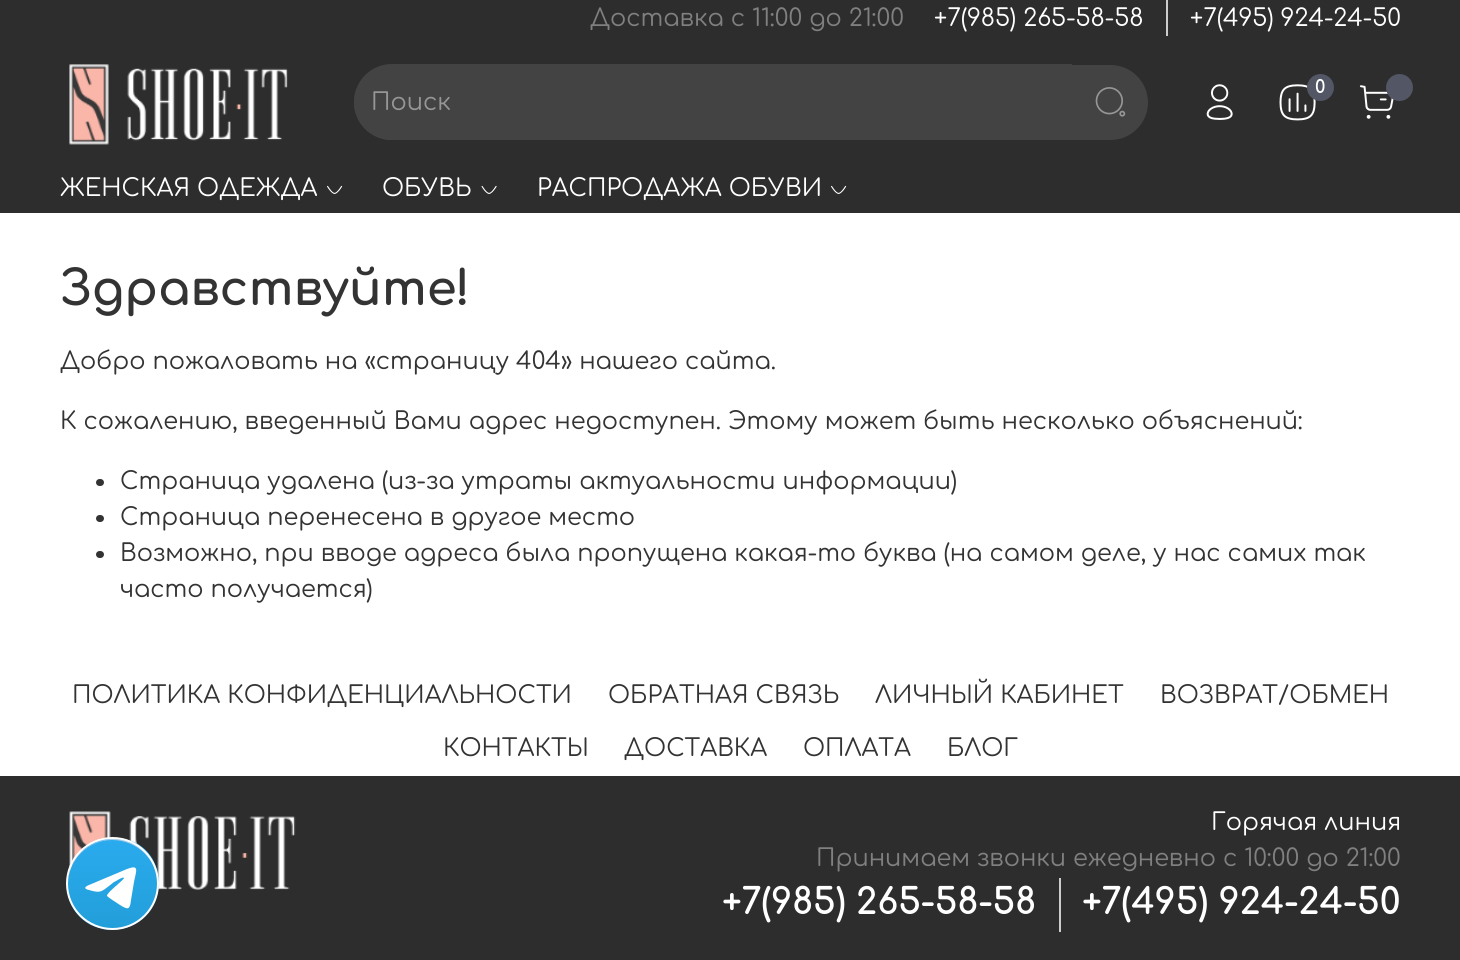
import math
import cairocffi as cairo

surface = cairo.ImageSurface(cairo.FORMAT_RGB24, 1460, 960)
cr = cairo.Context(surface)
options = cairo.FontOptions()
options.set_hint_metrics(cairo.HINT_METRICS_OFF)
options.set_hint_style(cairo.HINT_STYLE_NONE)
cr.set_font_options(options)
cr.set_miter_limit(4)


def use_color(code):
    cr.set_source_rgb(*(v / 255 for v in bytes.fromhex(code[-6:])))


def round_rect(x, y, w, h, r):
    cr.new_sub_path()
    for i, (u, v) in enumerate([(x + w - r, y + h - r), (x + r, y + h - r), (x + r, y + r), (x + w - r, y + r)]):
        cr.arc(u, v, r, i * math.pi / 2, (i + 1) * math.pi / 2)
    cr.close_path()


def picture(path, x, y, w, h):
    cr.save()
    cr.set_source_surface(cairo.ImageSurface.create_from_png(path), x, y)
    cr.rectangle(x, y, w, h)
    cr.fill()
    cr.restore()


use_color("#ffffff")
cr.paint()
use_color("#2d2d2d")
cr.rectangle(0, 0, 1460, 213)
cr.fill()
cr.select_font_face("Comfortaa")
cr.set_font_size(24)
use_color("#808080")
cr.move_to(590, 26)
cr.show_text("Доставка с 11:00 до 21:00")
use_color("#cccccc")
cr.rectangle(1166, 0, 2, 36)
cr.fill()
use_color("#ffffff")
cr.move_to(934, 26)
cr.show_text("+7(985) 265-58-58")
cr.move_to(1190, 26)
cr.show_text("+7(495) 924-24-50")
picture("img1.png", 69, 64, 219, 81)
picture("img2.png", 1206, 84, 27, 36)
picture("img3.png", 1279, 84, 37, 37)
use_color("#525665")
cr.arc(1320.5, 87.5, 13.5, 0, 2 * math.pi)
cr.fill()
cr.select_font_face("Comfortaa", cairo.FONT_SLANT_NORMAL, cairo.FONT_WEIGHT_BOLD)
cr.set_font_size(18)
use_color("#ffffff")
cr.move_to(1315, 93)
cr.show_text("0")
picture("img4.png", 1359, 85, 35, 34)
use_color("#525665")
cr.arc(1399.5, 87.5, 13.5, 0, 2 * math.pi)
cr.fill()
use_color("#434343")
cr.new_path()
cr.move_to(391.5, 65)
cr.line_to(1073, 65)
cr.line_to(1073, 140)
cr.line_to(391.5, 140)
cr.curve_to(371, 140, 354, 123, 354, 102.5)
cr.curve_to(354, 82, 371, 65, 391.5, 65)
cr.close_path()
cr.fill()
cr.set_fill_rule(cairo.FILL_RULE_EVEN_ODD)
cr.new_path()
cr.move_to(392, 64)
cr.line_to(1072, 64)
cr.line_to(1072, 140)
cr.line_to(392, 140)
cr.curve_to(371, 140, 354, 123, 354, 102)
cr.curve_to(354, 81, 371, 64, 392, 64)
cr.close_path()
cr.move_to(392, 66)
cr.line_to(1072, 66)
cr.line_to(1072, 138)
cr.line_to(392, 138)
cr.curve_to(372, 138, 356, 122, 356, 102)
cr.curve_to(356, 82, 372, 66, 392, 66)
cr.close_path()
cr.fill()
cr.select_font_face("Comfortaa")
cr.set_font_size(24)
use_color("#969696")
cr.move_to(371, 110)
cr.show_text("Поиск")
use_color("#434343")
cr.new_path()
cr.move_to(1074, 66)
cr.line_to(1110.5, 66)
cr.curve_to(1130.5, 66, 1147, 82.5, 1147, 102.5)
cr.curve_to(1147, 122.5, 1130.5, 139, 1110.5, 139)
cr.line_to(1074, 139)
cr.close_path()
cr.fill_preserve()
cr.stroke()
picture("img5.png", 1095, 87, 31, 30)
use_color("#ffffff")
cr.move_to(60, 196)
cr.show_text("ЖЕНСКАЯ ОДЕЖДА")
picture("img6.png", 327, 185, 16, 9)
cr.move_to(382, 196)
cr.show_text("ОБУВЬ")
picture("img7.png", 481, 185, 16, 9)
cr.move_to(537, 196)
cr.show_text("РАСПРОДАЖА ОБУВИ")
picture("img6.png", 831, 185, 16, 9)
cr.select_font_face("Comfortaa", cairo.FONT_SLANT_NORMAL, cairo.FONT_WEIGHT_BOLD)
cr.set_font_size(48)
use_color("#333333")
cr.move_to(60, 305)
cr.show_text("Здравствуйте!")
cr.select_font_face("Comfortaa")
cr.set_font_size(24)
cr.move_to(60, 369)
cr.show_text("Добро пожаловать на «страницу 404» нашего сайта.")
cr.move_to(60, 429)
cr.show_text("К сожалению, введенный Вами адрес недоступен. Этому может быть несколько объяснений:")
round_rect(96, 479, 8, 7, 3.5)
cr.fill()
cr.move_to(120, 489)
cr.show_text("Страница удалена (из-за утраты актуальности информации)")
round_rect(96, 515, 8, 7, 3.5)
cr.fill()
cr.move_to(120, 525)
cr.show_text("Страница перенесена в другое место")
round_rect(96, 551, 8, 7, 3.5)
cr.fill()
cr.move_to(120, 561)
cr.show_text("Возможно, при вводе адреса была пропущена какая-то буква (на самом деле, у нас самих так")
cr.move_to(120, 597)
cr.show_text("часто получается)")
cr.move_to(72, 703)
cr.show_text("ПОЛИТИКА КОНФИДЕНЦИАЛЬНОСТИ")
cr.move_to(608, 703)
cr.show_text("ОБРАТНАЯ СВЯЗЬ")
cr.move_to(875, 703)
cr.show_text("ЛИЧНЫЙ КАБИНЕТ")
cr.move_to(1160, 703)
cr.show_text("ВОЗВРАТ/ОБМЕН")
cr.move_to(443, 756)
cr.show_text("КОНТАКТЫ")
cr.move_to(624, 756)
cr.show_text("ДОСТАВКА")
cr.move_to(803, 756)
cr.show_text("ОПЛАТА")
cr.move_to(947, 756)
cr.show_text("БЛОГ")
use_color("#2d2d2d")
cr.rectangle(0, 776, 1460, 184)
cr.fill()
picture("img8.png", 69, 811, 227, 79)
use_color("#ffffff")
cr.move_to(1211, 830)
cr.show_text("Горячая линия")
use_color("#808080")
cr.move_to(816, 866)
cr.show_text("Принимаем звонки ежедневно с 10:00 до 21:00")
use_color("#cccccc")
cr.rectangle(1059, 878, 2, 54)
cr.fill()
cr.select_font_face("Comfortaa", cairo.FONT_SLANT_NORMAL, cairo.FONT_WEIGHT_BOLD)
cr.set_font_size(36)
use_color("#ffffff")
cr.move_to(722, 914)
cr.show_text("+7(985) 265-58-58")
cr.move_to(1082, 914)
cr.show_text("+7(495) 924-24-50")
gradient = cairo.LinearGradient(114, 839, 114, 931)
gradient.add_color_stop_rgba(0, 0.165, 0.671, 0.933, 1)
gradient.add_color_stop_rgba(1, 0.133, 0.62, 0.851, 1)
cr.set_source(gradient)
cr.set_fill_rule(cairo.FILL_RULE_WINDING)
cr.new_path()
cr.move_to(114, 838)
cr.curve_to(173, 838, 175, 927, 112, 930)
cr.curve_to(105, 930, 98, 928, 91, 925)
cr.curve_to(49, 903, 67, 838, 114, 838)
cr.close_path()
cr.fill()
use_color("#ffffff")
cr.set_fill_rule(cairo.FILL_RULE_EVEN_ODD)
cr.new_path()
cr.move_to(89, 885)
cr.line_to(127, 869)
cr.curve_to(140, 864, 136, 871, 134, 882)
cr.line_to(131, 900)
cr.curve_to(130, 910, 128, 910, 120, 905)
cr.curve_to(117, 903, 109, 898, 107, 896)
cr.curve_to(106, 893, 124, 880, 124, 878)
cr.curve_to(123, 876, 115, 882, 114, 882)
cr.curve_to(102, 891, 102, 894, 89, 890)
cr.curve_to(84, 889, 84, 887, 89, 885)
cr.close_path()
cr.fill()
use_color("#abcbe9")
cr.set_fill_rule(cairo.FILL_RULE_WINDING)
cr.new_path()
cr.move_to(112, 840)
cr.curve_to(137, 840, 158, 860, 158, 885)
cr.curve_to(158, 875, 155, 866, 150, 859)
cr.curve_to(126, 822, 68, 840, 68, 884)
cr.curve_to(68, 860, 88, 840, 112, 840)
cr.close_path()
cr.fill()
cr.arc(112.5, 883.5, 45.5, 0, 2 * math.pi)
use_color("#ffffff")
cr.stroke()
surface.write_to_png("result.png")
